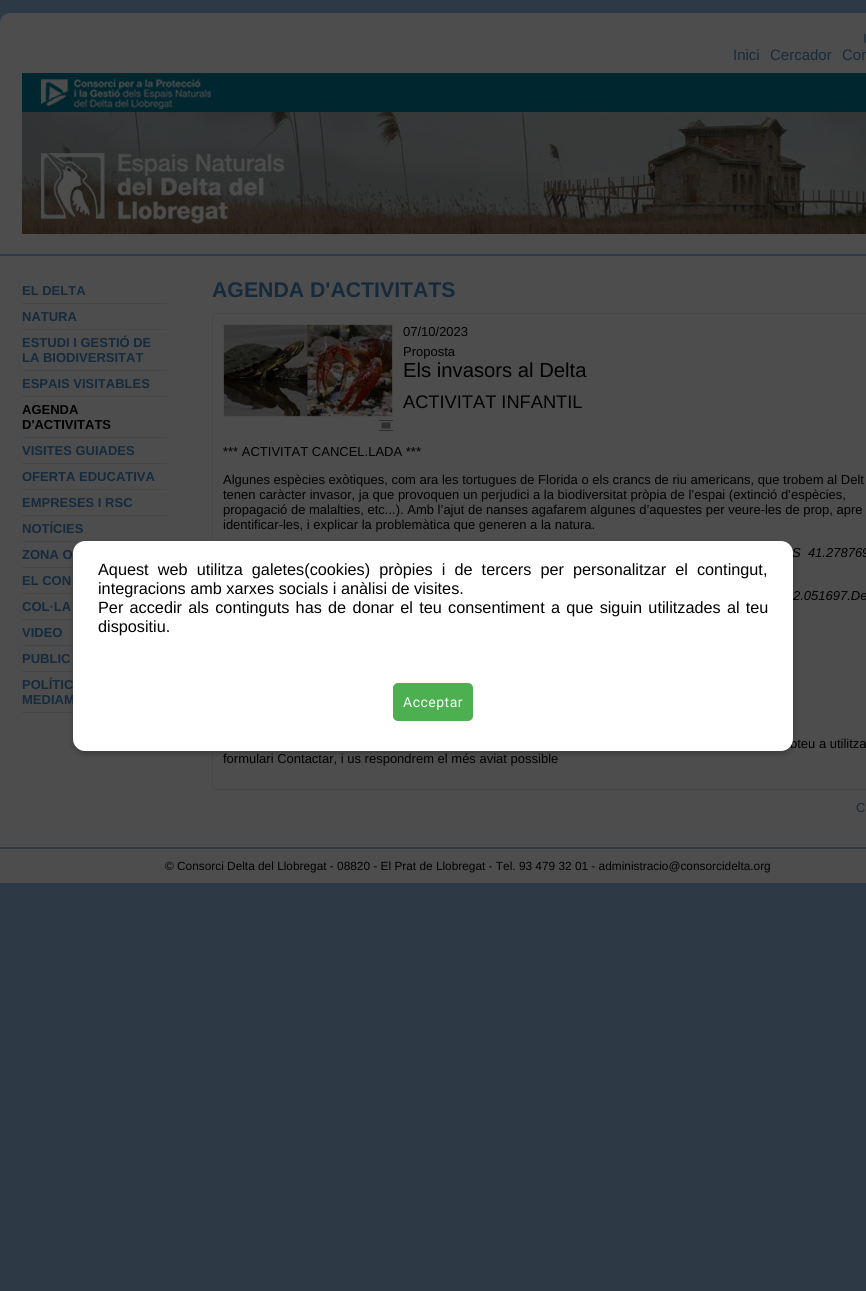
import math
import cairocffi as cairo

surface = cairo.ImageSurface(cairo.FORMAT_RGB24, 866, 1291)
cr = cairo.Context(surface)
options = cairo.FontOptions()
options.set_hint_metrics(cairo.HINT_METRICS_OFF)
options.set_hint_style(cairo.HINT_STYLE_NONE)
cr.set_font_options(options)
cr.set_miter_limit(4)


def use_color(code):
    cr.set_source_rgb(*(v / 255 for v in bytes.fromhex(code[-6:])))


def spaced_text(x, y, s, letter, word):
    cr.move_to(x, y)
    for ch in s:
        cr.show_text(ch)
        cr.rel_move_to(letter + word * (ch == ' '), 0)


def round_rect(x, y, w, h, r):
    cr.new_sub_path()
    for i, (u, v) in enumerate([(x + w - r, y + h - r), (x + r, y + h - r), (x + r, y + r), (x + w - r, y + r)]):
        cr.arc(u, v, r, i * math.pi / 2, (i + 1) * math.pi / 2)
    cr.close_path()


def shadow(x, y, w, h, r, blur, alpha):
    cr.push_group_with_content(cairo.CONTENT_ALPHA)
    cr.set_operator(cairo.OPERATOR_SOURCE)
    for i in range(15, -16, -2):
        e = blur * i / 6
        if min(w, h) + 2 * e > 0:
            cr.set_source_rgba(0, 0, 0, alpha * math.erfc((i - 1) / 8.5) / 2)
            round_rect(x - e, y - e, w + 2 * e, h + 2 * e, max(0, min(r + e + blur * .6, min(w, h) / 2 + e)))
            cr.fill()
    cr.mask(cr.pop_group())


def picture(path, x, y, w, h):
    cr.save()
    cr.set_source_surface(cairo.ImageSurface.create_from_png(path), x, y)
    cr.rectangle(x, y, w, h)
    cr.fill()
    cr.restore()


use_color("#2d3944")
cr.paint()
use_color("#4d4d4d")
cr.new_path()
cr.move_to(10, 13)
cr.line_to(866, 13)
cr.curve_to(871.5, 13, 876, 17.5, 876, 23)
cr.line_to(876, 254)
cr.line_to(0, 254)
cr.line_to(0, 23)
cr.curve_to(0, 17.5, 4.5, 13, 10, 13)
cr.close_path()
cr.fill()
cr.select_font_face("Liberation Sans")
cr.set_font_size(13)
use_color("#152a3d")
cr.move_to(863, 43)
cr.show_text("I")
cr.set_font_size(15)
cr.move_to(733, 60)
cr.show_text("Inici")
cr.move_to(770, 60)
cr.show_text("Cercador")
cr.move_to(842, 60)
cr.show_text("Con")
picture("img1.png", 22, 73, 844, 161)
use_color("#4d4d4d")
cr.rectangle(0, 256, 866, 591)
cr.fill()
use_color("#464646")
cr.rectangle(22, 303, 145, 1)
cr.fill()
cr.select_font_face("Liberation Sans", cairo.FONT_SLANT_NORMAL, cairo.FONT_WEIGHT_BOLD)
cr.set_font_size(13)
use_color("#152a3d")
cr.move_to(22, 295)
cr.show_text("EL DELTA")
use_color("#464646")
cr.rectangle(22, 329, 145, 1)
cr.fill()
use_color("#152a3d")
cr.move_to(22, 321)
cr.show_text("NATURA")
use_color("#464646")
cr.rectangle(22, 370, 145, 1)
cr.fill()
use_color("#152a3d")
cr.move_to(22, 347)
cr.show_text("ESTUDI I GESTIÓ DE")
cr.move_to(22, 362)
cr.show_text("LA BIODIVERSITAT")
use_color("#464646")
cr.rectangle(22, 396, 145, 1)
cr.fill()
use_color("#152a3d")
cr.move_to(22, 388)
cr.show_text("ESPAIS VISITABLES")
use_color("#464646")
cr.rectangle(22, 437, 145, 1)
cr.fill()
use_color("#000000")
cr.move_to(22, 414)
cr.show_text("AGENDA")
cr.move_to(22, 429)
cr.show_text("D'ACTIVITATS")
use_color("#464646")
cr.rectangle(22, 463, 145, 1)
cr.fill()
use_color("#152a3d")
cr.move_to(22, 455)
cr.show_text("VISITES GUIADES")
use_color("#464646")
cr.rectangle(22, 489, 145, 1)
cr.fill()
use_color("#152a3d")
cr.move_to(22, 481)
cr.show_text("OFERTA EDUCATIVA")
use_color("#464646")
cr.rectangle(22, 515, 145, 1)
cr.fill()
use_color("#152a3d")
cr.move_to(22, 507)
cr.show_text("EMPRESES I RSC")
use_color("#464646")
cr.rectangle(22, 541, 63, 1)
cr.fill()
use_color("#152a3d")
cr.move_to(22, 533)
cr.show_text("NOTÍCIES")
use_color("#464646")
cr.rectangle(22, 567, 51, 1)
cr.fill()
use_color("#152a3d")
cr.move_to(22, 559)
cr.show_text("ZONA O")
use_color("#464646")
cr.rectangle(22, 593, 51, 1)
cr.fill()
use_color("#152a3d")
cr.move_to(22, 585)
cr.show_text("EL CON")
use_color("#464646")
cr.rectangle(22, 619, 51, 1)
cr.fill()
use_color("#152a3d")
cr.move_to(22, 611)
cr.show_text("COL·LA")
use_color("#464646")
cr.rectangle(22, 645, 51, 1)
cr.fill()
use_color("#152a3d")
cr.move_to(22, 637)
cr.show_text("VIDEO")
use_color("#464646")
cr.rectangle(22, 671, 51, 1)
cr.fill()
use_color("#152a3d")
cr.move_to(22, 663)
cr.show_text("PUBLIC")
use_color("#464646")
cr.rectangle(22, 712, 51, 1)
cr.fill()
use_color("#152a3d")
cr.move_to(22, 689)
cr.show_text("POLÍTIC")
cr.move_to(22, 704)
cr.show_text("MEDIAM")
cr.set_font_size(21.25)
cr.move_to(212, 297)
cr.show_text("AGENDA D'ACTIVITATS")
round_rect(212.5, 313.5, 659, 476, 4.5)
use_color("#464646")
cr.set_line_width(1)
cr.stroke()
picture("img2.png", 223, 324, 170, 93)
picture("img3.png", 379, 420, 14, 11)
cr.select_font_face("Liberation Sans")
cr.set_font_size(13)
use_color("#000000")
cr.move_to(403, 336)
cr.show_text("07/10/2023")
cr.move_to(403, 356)
cr.show_text("Proposta")
cr.set_font_size(20.25)
cr.move_to(403, 377)
cr.show_text("Els invasors al Delta")
cr.set_font_size(18.25)
cr.move_to(403, 408)
cr.show_text("ACTIVITAT INFANTIL")
cr.set_font_size(13)
cr.move_to(223, 456)
cr.show_text("*** ACTIVITAT CANCEL.LADA ***")
cr.move_to(223, 484)
cr.show_text("Algunes espècies exòtiques, com ara les tortugues de Florida o els crancs de riu americans, que trobem al Delt")
cr.move_to(223, 499)
cr.show_text("tenen caràcter invasor, ja que provoquen un perjudici a la biodiversitat pròpia de l’espai (extinció d’espècies,")
cr.move_to(223, 514)
cr.show_text("propagació de malalties, etc...). Amb l’ajut de nanses agafarem algunes d’aquestes per veure-les de prop, apre")
cr.move_to(223, 529)
cr.show_text("identificar-les, i explicar la problemàtica que generen a la natura.")
cr.select_font_face("Liberation Sans", cairo.FONT_SLANT_ITALIC)
cr.move_to(792, 557)
cr.show_text("S  41.278769")
cr.move_to(793, 600)
cr.show_text("2.051697.De")
cr.select_font_face("Liberation Sans")
cr.move_to(790, 748)
cr.show_text("bteu a utilitza")
cr.move_to(223, 763)
cr.show_text("formulari Contactar, i us respondrem el més aviat possible")
use_color("#152a3d")
cr.move_to(856, 812)
cr.show_text("C")
use_color("#4d4d4d")
cr.rectangle(0, 849, 866, 34)
cr.fill()
cr.set_font_size(11.85)
use_color("#000000")
cr.move_to(165, 870)
cr.show_text("© Consorci Delta del Llobregat - 08820 - El Prat de Llobregat - Tel. 93 479 32 01 - administracio@consorcidelta.org")
use_color("#000000")
shadow(73, 544, 720, 210, 12, 3, 0.23)
use_color("#ffffff")
round_rect(73, 541, 720, 210, 12)
cr.fill()
cr.set_font_size(16.25)
use_color("#000000")
spaced_text(98, 575, "Aquest web utilitza galetes(cookies) pròpies i de tercers per personalitzar el contingut,", 0, 4.6)
cr.move_to(98, 594)
cr.show_text("integracions amb xarxes socials i anàlisi de visites.")
spaced_text(98, 613, "Per accedir als continguts has de donar el teu consentiment a que siguin utilitzades al teu", 0, 1.75)
cr.move_to(98, 632)
cr.show_text("dispositiu.")
use_color("#4caf50")
round_rect(394, 684, 78, 36, 4)
cr.fill_preserve()
cr.set_line_width(2)
cr.stroke()
cr.select_font_face("Roboto")
cr.set_font_size(14)
use_color("#ffffff")
spaced_text(403, 707, "Acceptar", 0.5, 0)
surface.write_to_png("result.png")
